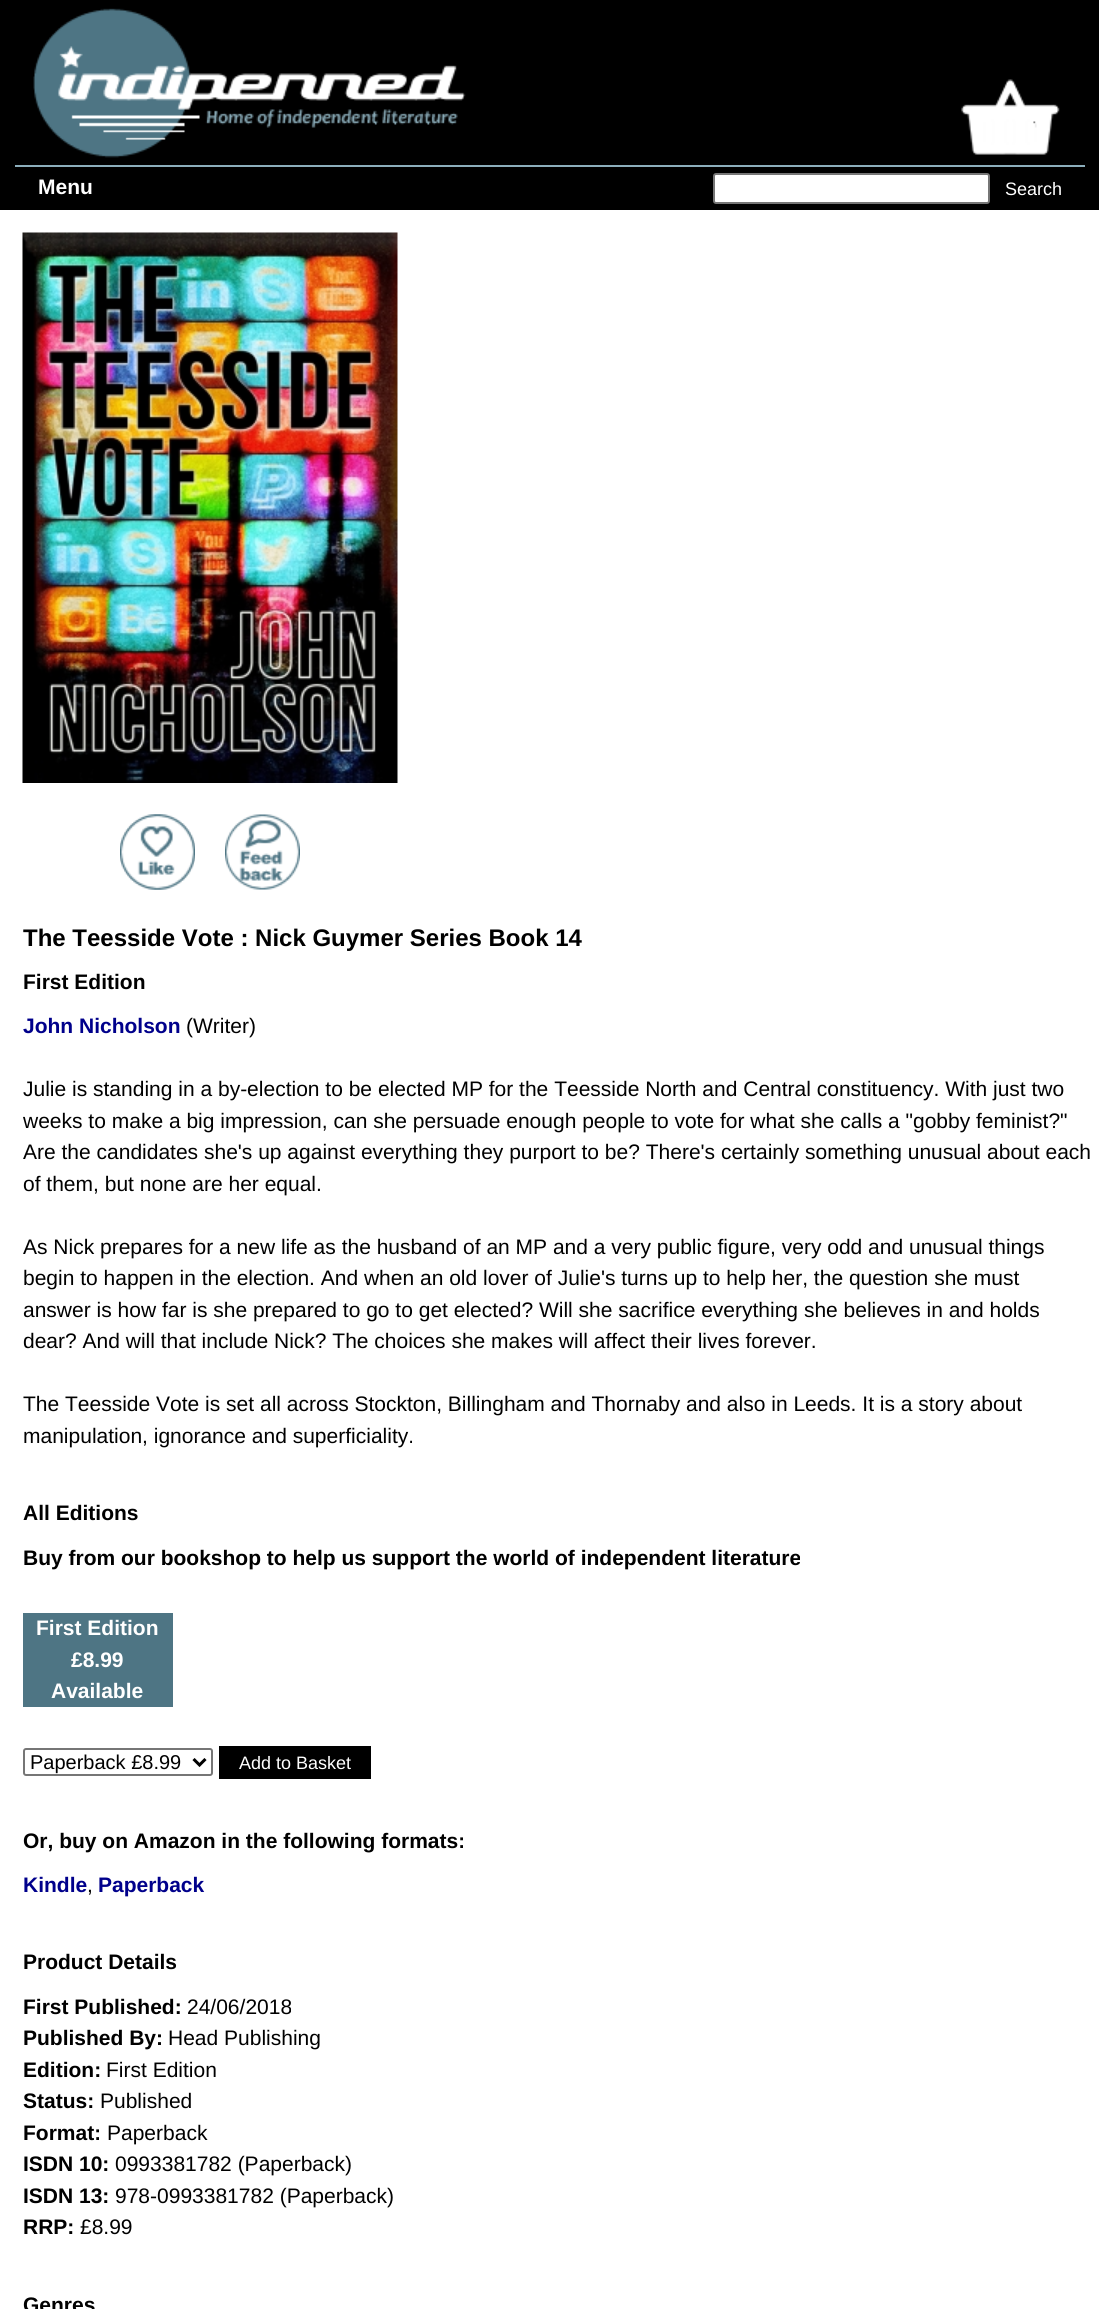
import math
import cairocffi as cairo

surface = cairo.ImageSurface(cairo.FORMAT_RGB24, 1099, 2309)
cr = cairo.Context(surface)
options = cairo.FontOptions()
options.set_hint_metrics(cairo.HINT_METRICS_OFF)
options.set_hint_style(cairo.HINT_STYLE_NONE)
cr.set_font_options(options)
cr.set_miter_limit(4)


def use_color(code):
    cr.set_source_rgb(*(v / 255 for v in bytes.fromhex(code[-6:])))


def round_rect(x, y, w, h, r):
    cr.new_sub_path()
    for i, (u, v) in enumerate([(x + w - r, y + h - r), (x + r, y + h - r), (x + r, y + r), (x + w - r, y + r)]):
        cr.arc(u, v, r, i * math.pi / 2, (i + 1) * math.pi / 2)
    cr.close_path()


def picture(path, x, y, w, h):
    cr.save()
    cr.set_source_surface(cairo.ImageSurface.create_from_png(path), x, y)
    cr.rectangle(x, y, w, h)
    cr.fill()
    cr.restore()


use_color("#ffffff")
cr.paint()
use_color("#000000")
cr.rectangle(0, 0, 1099, 210)
cr.fill()
picture("img1.png", 33, 8, 433, 150)
picture("img2.png", 961, 79, 99, 76)
use_color("#8caebb")
cr.rectangle(15, 165, 1070, 2)
cr.fill()
cr.select_font_face("Liberation Sans", cairo.FONT_SLANT_NORMAL, cairo.FONT_WEIGHT_BOLD)
cr.set_font_size(21)
use_color("#ffffff")
cr.move_to(38, 194)
cr.show_text("Menu")
round_rect(714, 174, 275, 29, 2)
cr.fill_preserve()
use_color("#767676")
cr.stroke()
cr.select_font_face("Liberation Sans")
cr.set_font_size(18)
use_color("#ffffff")
cr.move_to(1005, 195)
cr.show_text("Search")
picture("img3.png", 22, 232, 376, 551)
picture("img4.png", 120, 814, 75, 76)
picture("img5.png", 120, 814, 75, 76)
picture("img6.png", 225, 814, 75, 76)
cr.select_font_face("Liberation Sans", cairo.FONT_SLANT_NORMAL, cairo.FONT_WEIGHT_BOLD)
cr.set_font_size(24)
use_color("#000000")
cr.move_to(23, 946)
cr.show_text("The Teesside Vote : Nick Guymer Series Book 14")
cr.set_font_size(21)
cr.move_to(23, 989)
cr.show_text("First Edition")
use_color("#00008b")
cr.move_to(23, 1033)
cr.show_text("John Nicholson")
cr.select_font_face("Liberation Sans")
use_color("#000000")
cr.move_to(186, 1033)
cr.show_text("(Writer)")
cr.move_to(23, 1096)
cr.show_text("Julie is standing in a by-election to be elected MP for the Teesside North and Central constituency. With just two")
cr.move_to(23, 1128)
cr.show_text("weeks to make a big impression, can she persuade enough people to vote for what she calls a \"gobby feminist?\"")
cr.move_to(23, 1159)
cr.show_text("Are the candidates she's up against everything they purport to be? There's certainly something unusual about each")
cr.move_to(23, 1191)
cr.show_text("of them, but none are her equal.")
cr.move_to(23, 1254)
cr.show_text("As Nick prepares for a new life as the husband of an MP and a very public figure, very odd and unusual things")
cr.move_to(23, 1285)
cr.show_text("begin to happen in the election. And when an old lover of Julie's turns up to help her, the question she must")
cr.move_to(23, 1317)
cr.show_text("answer is how far is she prepared to go to get elected? Will she sacrifice everything she believes in and holds")
cr.move_to(23, 1348)
cr.show_text("dear? And will that include Nick? The choices she makes will affect their lives forever.")
cr.move_to(23, 1411)
cr.show_text("The Teesside Vote is set all across Stockton, Billingham and Thornaby and also in Leeds. It is a story about")
cr.move_to(23, 1443)
cr.show_text("manipulation, ignorance and superficiality.")
cr.select_font_face("Liberation Sans", cairo.FONT_SLANT_NORMAL, cairo.FONT_WEIGHT_BOLD)
cr.move_to(23, 1520)
cr.show_text("All Editions")
cr.move_to(23, 1565)
cr.show_text("Buy from our bookshop to help us support the world of independent literature")
use_color("#4e7584")
cr.rectangle(23, 1613, 150, 94)
cr.fill()
use_color("#ffffff")
cr.move_to(36, 1635)
cr.show_text("First Edition")
cr.move_to(71, 1667)
cr.show_text("£8.99")
cr.move_to(51, 1698)
cr.show_text("Available")
round_rect(24, 1749, 188, 26, 2)
use_color("#767676")
cr.stroke()
cr.new_path()
cr.move_to(193.5, 1759)
cr.line_to(199.5, 1765)
cr.line_to(205.5, 1759)
use_color("#000000")
cr.set_line_width(3)
cr.stroke()
cr.select_font_face("Liberation Sans")
cr.set_font_size(20)
cr.move_to(30, 1769)
cr.show_text("Paperback £8.99")
cr.rectangle(219, 1746, 152, 33)
cr.fill()
cr.set_font_size(18)
use_color("#ffffff")
cr.move_to(239, 1769)
cr.show_text("Add to Basket")
cr.select_font_face("Liberation Sans", cairo.FONT_SLANT_NORMAL, cairo.FONT_WEIGHT_BOLD)
cr.set_font_size(21)
use_color("#000000")
cr.move_to(23, 1848)
cr.show_text("Or, buy on Amazon in the following formats:")
use_color("#00008b")
cr.move_to(23, 1892)
cr.show_text("Kindle")
cr.select_font_face("Liberation Sans")
use_color("#000000")
cr.move_to(87, 1892)
cr.show_text(",")
cr.select_font_face("Liberation Sans", cairo.FONT_SLANT_NORMAL, cairo.FONT_WEIGHT_BOLD)
use_color("#00008b")
cr.move_to(98, 1892)
cr.show_text("Paperback")
use_color("#000000")
cr.move_to(23, 1969)
cr.show_text("Product Details")
cr.move_to(23, 2014)
cr.show_text("First Published:")
cr.select_font_face("Liberation Sans")
cr.move_to(187, 2014)
cr.show_text("24/06/2018")
cr.select_font_face("Liberation Sans", cairo.FONT_SLANT_NORMAL, cairo.FONT_WEIGHT_BOLD)
cr.move_to(23, 2045)
cr.show_text("Published By:")
cr.select_font_face("Liberation Sans")
cr.move_to(168, 2045)
cr.show_text("Head Publishing")
cr.select_font_face("Liberation Sans", cairo.FONT_SLANT_NORMAL, cairo.FONT_WEIGHT_BOLD)
cr.move_to(23, 2077)
cr.show_text("Edition:")
cr.select_font_face("Liberation Sans")
cr.move_to(106, 2077)
cr.show_text("First Edition")
cr.select_font_face("Liberation Sans", cairo.FONT_SLANT_NORMAL, cairo.FONT_WEIGHT_BOLD)
cr.move_to(23, 2108)
cr.show_text("Status:")
cr.select_font_face("Liberation Sans")
cr.move_to(100, 2108)
cr.show_text("Published")
cr.select_font_face("Liberation Sans", cairo.FONT_SLANT_NORMAL, cairo.FONT_WEIGHT_BOLD)
cr.move_to(23, 2140)
cr.show_text("Format:")
cr.select_font_face("Liberation Sans")
cr.move_to(107, 2140)
cr.show_text("Paperback")
cr.select_font_face("Liberation Sans", cairo.FONT_SLANT_NORMAL, cairo.FONT_WEIGHT_BOLD)
cr.move_to(23, 2171)
cr.show_text("ISDN 10:")
cr.select_font_face("Liberation Sans")
cr.move_to(115, 2171)
cr.show_text("0993381782 (Paperback)")
cr.select_font_face("Liberation Sans", cairo.FONT_SLANT_NORMAL, cairo.FONT_WEIGHT_BOLD)
cr.move_to(23, 2203)
cr.show_text("ISDN 13:")
cr.select_font_face("Liberation Sans")
cr.move_to(115, 2203)
cr.show_text("978-0993381782 (Paperback)")
cr.select_font_face("Liberation Sans", cairo.FONT_SLANT_NORMAL, cairo.FONT_WEIGHT_BOLD)
cr.move_to(23, 2234)
cr.show_text("RRP:")
cr.select_font_face("Liberation Sans")
cr.move_to(80, 2234)
cr.show_text("£8.99")
cr.select_font_face("Liberation Sans", cairo.FONT_SLANT_NORMAL, cairo.FONT_WEIGHT_BOLD)
cr.move_to(23, 2312)
cr.show_text("Genres")
surface.write_to_png("result.png")
